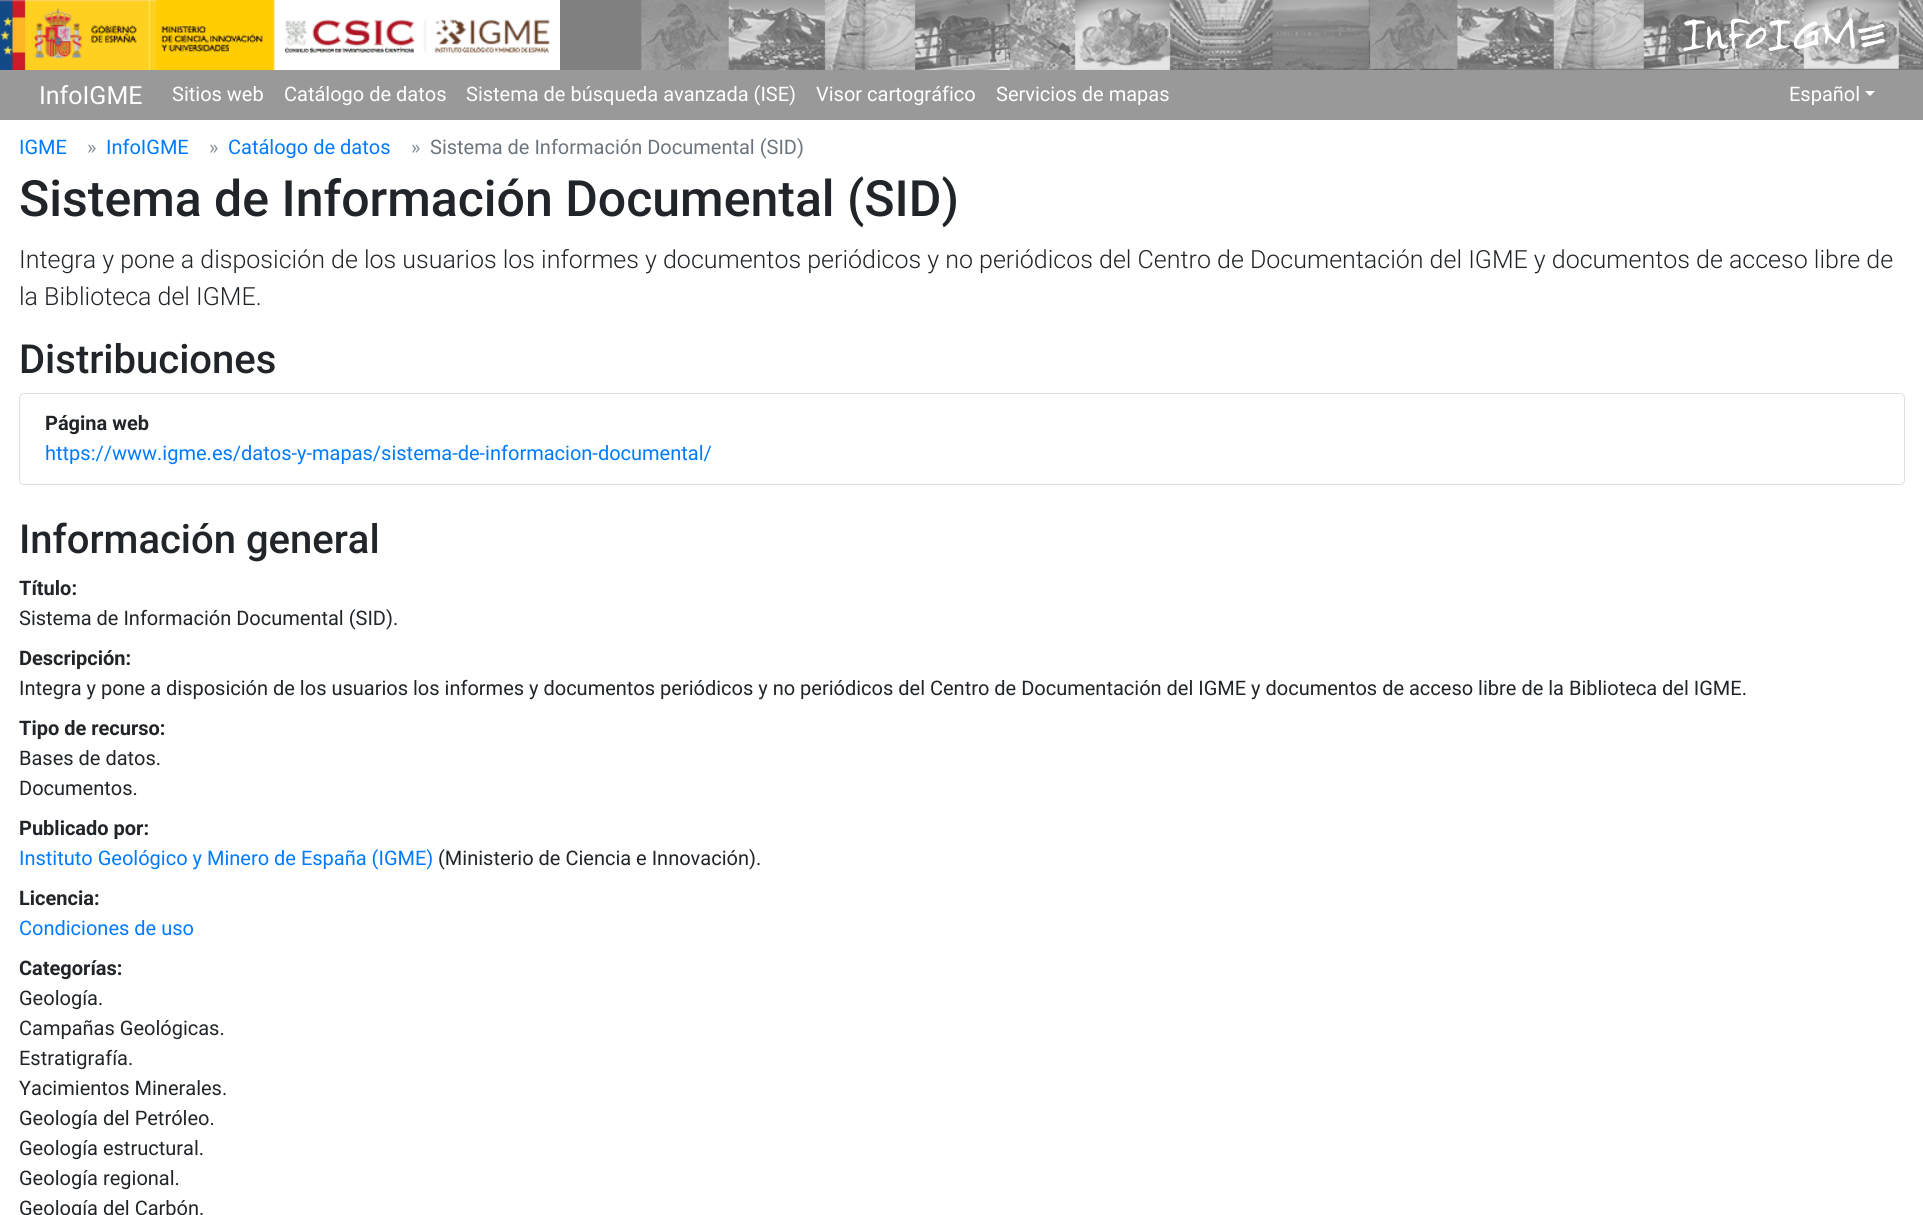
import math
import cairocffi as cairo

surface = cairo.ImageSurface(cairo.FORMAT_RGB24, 1923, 1215)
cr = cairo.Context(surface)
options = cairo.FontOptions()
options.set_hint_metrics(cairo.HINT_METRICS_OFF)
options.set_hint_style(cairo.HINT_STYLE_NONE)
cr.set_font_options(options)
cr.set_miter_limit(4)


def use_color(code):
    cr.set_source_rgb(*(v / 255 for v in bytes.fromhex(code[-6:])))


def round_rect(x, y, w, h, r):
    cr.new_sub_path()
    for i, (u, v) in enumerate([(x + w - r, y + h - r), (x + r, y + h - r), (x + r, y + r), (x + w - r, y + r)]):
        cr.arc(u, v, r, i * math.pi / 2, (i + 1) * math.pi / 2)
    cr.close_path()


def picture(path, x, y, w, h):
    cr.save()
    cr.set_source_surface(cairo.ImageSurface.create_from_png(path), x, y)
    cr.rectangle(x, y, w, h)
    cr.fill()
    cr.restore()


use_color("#ffffff")
cr.paint()
use_color("#808080")
cr.rectangle(560, 0, 1363, 70)
cr.fill()
picture("img1.png", 0, 0, 560, 70)
picture("img2.png", 641, 0, 1282, 70)
cr.select_font_face("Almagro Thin")
cr.set_font_size(40)
use_color("#ffffff")
cr.move_to(1680, 49)
cr.show_text("InfoIGME")
use_color("#999999")
cr.rectangle(0, 70, 1923, 50)
cr.fill()
cr.select_font_face("Roboto")
cr.set_font_size(25)
use_color("#ffffff")
cr.move_to(39, 104)
cr.show_text("InfoIGME")
cr.set_font_size(20)
cr.move_to(172, 101)
cr.show_text("Sitios web")
cr.move_to(284, 101)
cr.show_text("Catálogo de datos")
cr.move_to(466, 101)
cr.show_text("Sistema de búsqueda avanzada (ISE)")
cr.move_to(816, 101)
cr.show_text("Visor cartográfico")
cr.move_to(996, 101)
cr.show_text("Servicios de mapas")
cr.move_to(1789, 101)
cr.show_text("Español")
cr.new_path()
cr.move_to(1865, 91)
cr.line_to(1875, 91)
cr.line_to(1870, 96)
cr.close_path()
cr.fill()
use_color("#007bff")
cr.move_to(19, 154)
cr.show_text("IGME")
use_color("#868e96")
cr.move_to(87, 154)
cr.show_text("»")
use_color("#007bff")
cr.move_to(106, 154)
cr.show_text("InfoIGME")
use_color("#868e96")
cr.move_to(209, 154)
cr.show_text("»")
use_color("#007bff")
cr.move_to(228, 154)
cr.show_text("Catálogo de datos")
use_color("#868e96")
cr.move_to(411, 154)
cr.show_text("»")
use_color("#6c757d")
cr.move_to(430, 154)
cr.show_text("Sistema de Información Documental (SID)")
cr.select_font_face("Roboto Medium")
cr.set_font_size(50)
use_color("#212529")
cr.move_to(19, 216)
cr.show_text("Sistema de Información Documental (SID)")
cr.select_font_face("Roboto Light")
cr.set_font_size(25)
cr.move_to(19, 268)
cr.show_text("Integra y pone a disposición de los usuarios los informes y documentos periódicos y no periódicos del Centro de Documentación del IGME y documentos de acceso libre de")
cr.move_to(19, 305)
cr.show_text("la Biblioteca del IGME.")
cr.select_font_face("Roboto Medium")
cr.set_font_size(40)
cr.move_to(19, 373)
cr.show_text("Distribuciones")
round_rect(19.5, 393.5, 1885, 91, 4.5)
use_color("#dfdfdf")
cr.set_line_width(1)
cr.stroke()
cr.select_font_face("Roboto", cairo.FONT_SLANT_NORMAL, cairo.FONT_WEIGHT_BOLD)
cr.set_font_size(20)
use_color("#212529")
cr.move_to(45, 430)
cr.show_text("Página web")
cr.select_font_face("Roboto")
use_color("#007bff")
cr.move_to(45, 460)
cr.show_text("https://www.igme.es/datos-y-mapas/sistema-de-informacion-documental/")
cr.select_font_face("Roboto Medium")
cr.set_font_size(40)
use_color("#212529")
cr.move_to(19, 553)
cr.show_text("Información general")
cr.select_font_face("Roboto", cairo.FONT_SLANT_NORMAL, cairo.FONT_WEIGHT_BOLD)
cr.set_font_size(20)
cr.move_to(19, 595)
cr.show_text("Título:")
cr.select_font_face("Roboto")
cr.move_to(19, 625)
cr.show_text("Sistema de Información Documental (SID).")
cr.select_font_face("Roboto", cairo.FONT_SLANT_NORMAL, cairo.FONT_WEIGHT_BOLD)
cr.move_to(19, 665)
cr.show_text("Descripción:")
cr.select_font_face("Roboto")
cr.move_to(19, 695)
cr.show_text("Integra y pone a disposición de los usuarios los informes y documentos periódicos y no periódicos del Centro de Documentación del IGME y documentos de acceso libre de la Biblioteca del IGME.")
cr.select_font_face("Roboto", cairo.FONT_SLANT_NORMAL, cairo.FONT_WEIGHT_BOLD)
cr.move_to(19, 735)
cr.show_text("Tipo de recurso:")
cr.select_font_face("Roboto")
cr.move_to(19, 765)
cr.show_text("Bases de datos.")
cr.move_to(19, 795)
cr.show_text("Documentos.")
cr.select_font_face("Roboto", cairo.FONT_SLANT_NORMAL, cairo.FONT_WEIGHT_BOLD)
cr.move_to(19, 835)
cr.show_text("Publicado por:")
cr.select_font_face("Roboto")
use_color("#007bff")
cr.move_to(19, 865)
cr.show_text("Instituto Geológico y Minero de España (IGME)")
use_color("#212529")
cr.move_to(438, 865)
cr.show_text("(Ministerio de Ciencia e Innovación).")
cr.select_font_face("Roboto", cairo.FONT_SLANT_NORMAL, cairo.FONT_WEIGHT_BOLD)
cr.move_to(19, 905)
cr.show_text("Licencia:")
cr.select_font_face("Roboto")
use_color("#007bff")
cr.move_to(19, 935)
cr.show_text("Condiciones de uso")
cr.select_font_face("Roboto", cairo.FONT_SLANT_NORMAL, cairo.FONT_WEIGHT_BOLD)
use_color("#212529")
cr.move_to(19, 975)
cr.show_text("Categorías:")
cr.select_font_face("Roboto")
cr.move_to(19, 1005)
cr.show_text("Geología.")
cr.move_to(19, 1035)
cr.show_text("Campañas Geológicas.")
cr.move_to(19, 1065)
cr.show_text("Estratigrafía.")
cr.move_to(19, 1095)
cr.show_text("Yacimientos Minerales.")
cr.move_to(19, 1125)
cr.show_text("Geología del Petróleo.")
cr.move_to(19, 1155)
cr.show_text("Geología estructural.")
cr.move_to(19, 1185)
cr.show_text("Geología regional.")
cr.move_to(19, 1215)
cr.show_text("Geología del Carbón.")
surface.write_to_png("result.png")
